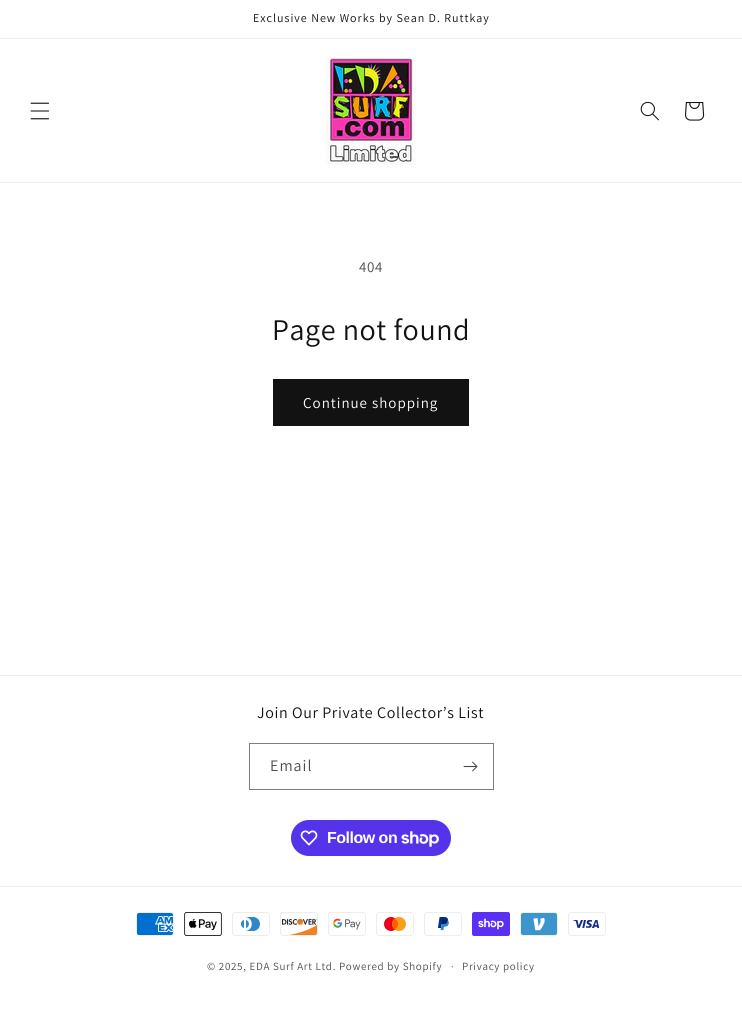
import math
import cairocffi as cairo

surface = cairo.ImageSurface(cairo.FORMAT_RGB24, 742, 1009)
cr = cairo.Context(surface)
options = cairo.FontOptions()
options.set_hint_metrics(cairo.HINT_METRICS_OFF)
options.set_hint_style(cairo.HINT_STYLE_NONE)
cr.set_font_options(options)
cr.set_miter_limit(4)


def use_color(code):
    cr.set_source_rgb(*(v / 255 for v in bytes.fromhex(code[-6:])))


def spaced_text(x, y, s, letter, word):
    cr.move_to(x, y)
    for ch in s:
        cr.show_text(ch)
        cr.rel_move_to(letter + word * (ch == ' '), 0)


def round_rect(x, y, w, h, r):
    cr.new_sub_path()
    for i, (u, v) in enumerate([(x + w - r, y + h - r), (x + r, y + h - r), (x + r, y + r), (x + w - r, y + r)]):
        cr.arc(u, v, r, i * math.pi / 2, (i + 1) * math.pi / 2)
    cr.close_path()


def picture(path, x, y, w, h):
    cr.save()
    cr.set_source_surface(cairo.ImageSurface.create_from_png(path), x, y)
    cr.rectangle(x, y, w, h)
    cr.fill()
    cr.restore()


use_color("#ffffff")
cr.paint()
use_color("#ececec")
cr.rectangle(0, 38, 742, 1)
cr.fill()
cr.select_font_face("Assistant")
cr.set_font_size(12)
use_color("#121212")
spaced_text(253, 22, "Exclusive New Works by Sean D. Ruttkay", 1, 0)
use_color("#ececec")
cr.rectangle(0, 182, 742, 1)
cr.fill()
picture("img1.png", 30, 102, 20, 18)
picture("img2.png", 326, 57, 90, 108)
picture("img3.png", 640, 101, 19, 20)
picture("img4.png", 685, 102, 20, 19)
cr.set_font_size(15)
use_color("#4d4d4d")
spaced_text(359, 272, "404", 0.6, 0)
cr.set_font_size(30)
use_color("#121212")
spaced_text(272, 340, "Page not found", 0.6, 0)
cr.rectangle(273, 379, 196, 47)
cr.fill()
cr.set_font_size(15)
use_color("#ffffff")
spaced_text(303, 408, "Continue shopping", 1, 0)
use_color("#ececec")
cr.rectangle(0, 675, 742, 1)
cr.fill()
cr.set_font_size(16)
use_color("#121212")
spaced_text(257, 718, "Join Our Private Collector’s List", 0.6, 0)
cr.rectangle(249.5, 743.5, 244, 46)
use_color("#7d7d7d")
cr.set_line_width(1)
cr.stroke()
use_color("#4d4d4d")
spaced_text(270, 771, "Email", 1, 0)
picture("img5.png", 463, 761, 15, 11)
use_color("#5433eb")
round_rect(291, 820, 160, 36, 18)
cr.fill()
picture("img6.png", 300, 830, 18, 16)
cr.select_font_face("Liberation Sans", cairo.FONT_SLANT_NORMAL, cairo.FONT_WEIGHT_BOLD)
use_color("#ffffff")
spaced_text(327, 843, "Follow on", -0.5, 0)
picture("img7.png", 401, 831, 38, 16)
use_color("#ececec")
cr.rectangle(0, 886, 742, 1)
cr.fill()
picture("img8.png", 136, 912, 38, 24)
picture("img9.png", 184, 912, 38, 24)
picture("img10.png", 232, 912, 38, 24)
picture("img11.png", 280, 912, 38, 24)
picture("img12.png", 328, 912, 38, 24)
picture("img13.png", 376, 912, 38, 24)
picture("img14.png", 424, 912, 38, 24)
picture("img15.png", 472, 912, 38, 24)
picture("img16.png", 520, 912, 38, 24)
picture("img17.png", 568, 912, 38, 24)
cr.select_font_face("Assistant")
cr.set_font_size(11)
use_color("#4d4d4d")
spaced_text(207, 970, "© 2025, EDA Surf Art Ltd. Powered by Shopify", 0.7, 0)
cr.set_font_size(10)
spaced_text(451, 970, "·", 0.7, 0)
cr.set_font_size(11)
spaced_text(462, 970, "Privacy policy", 0.7, 0)
surface.write_to_png("result.png")
